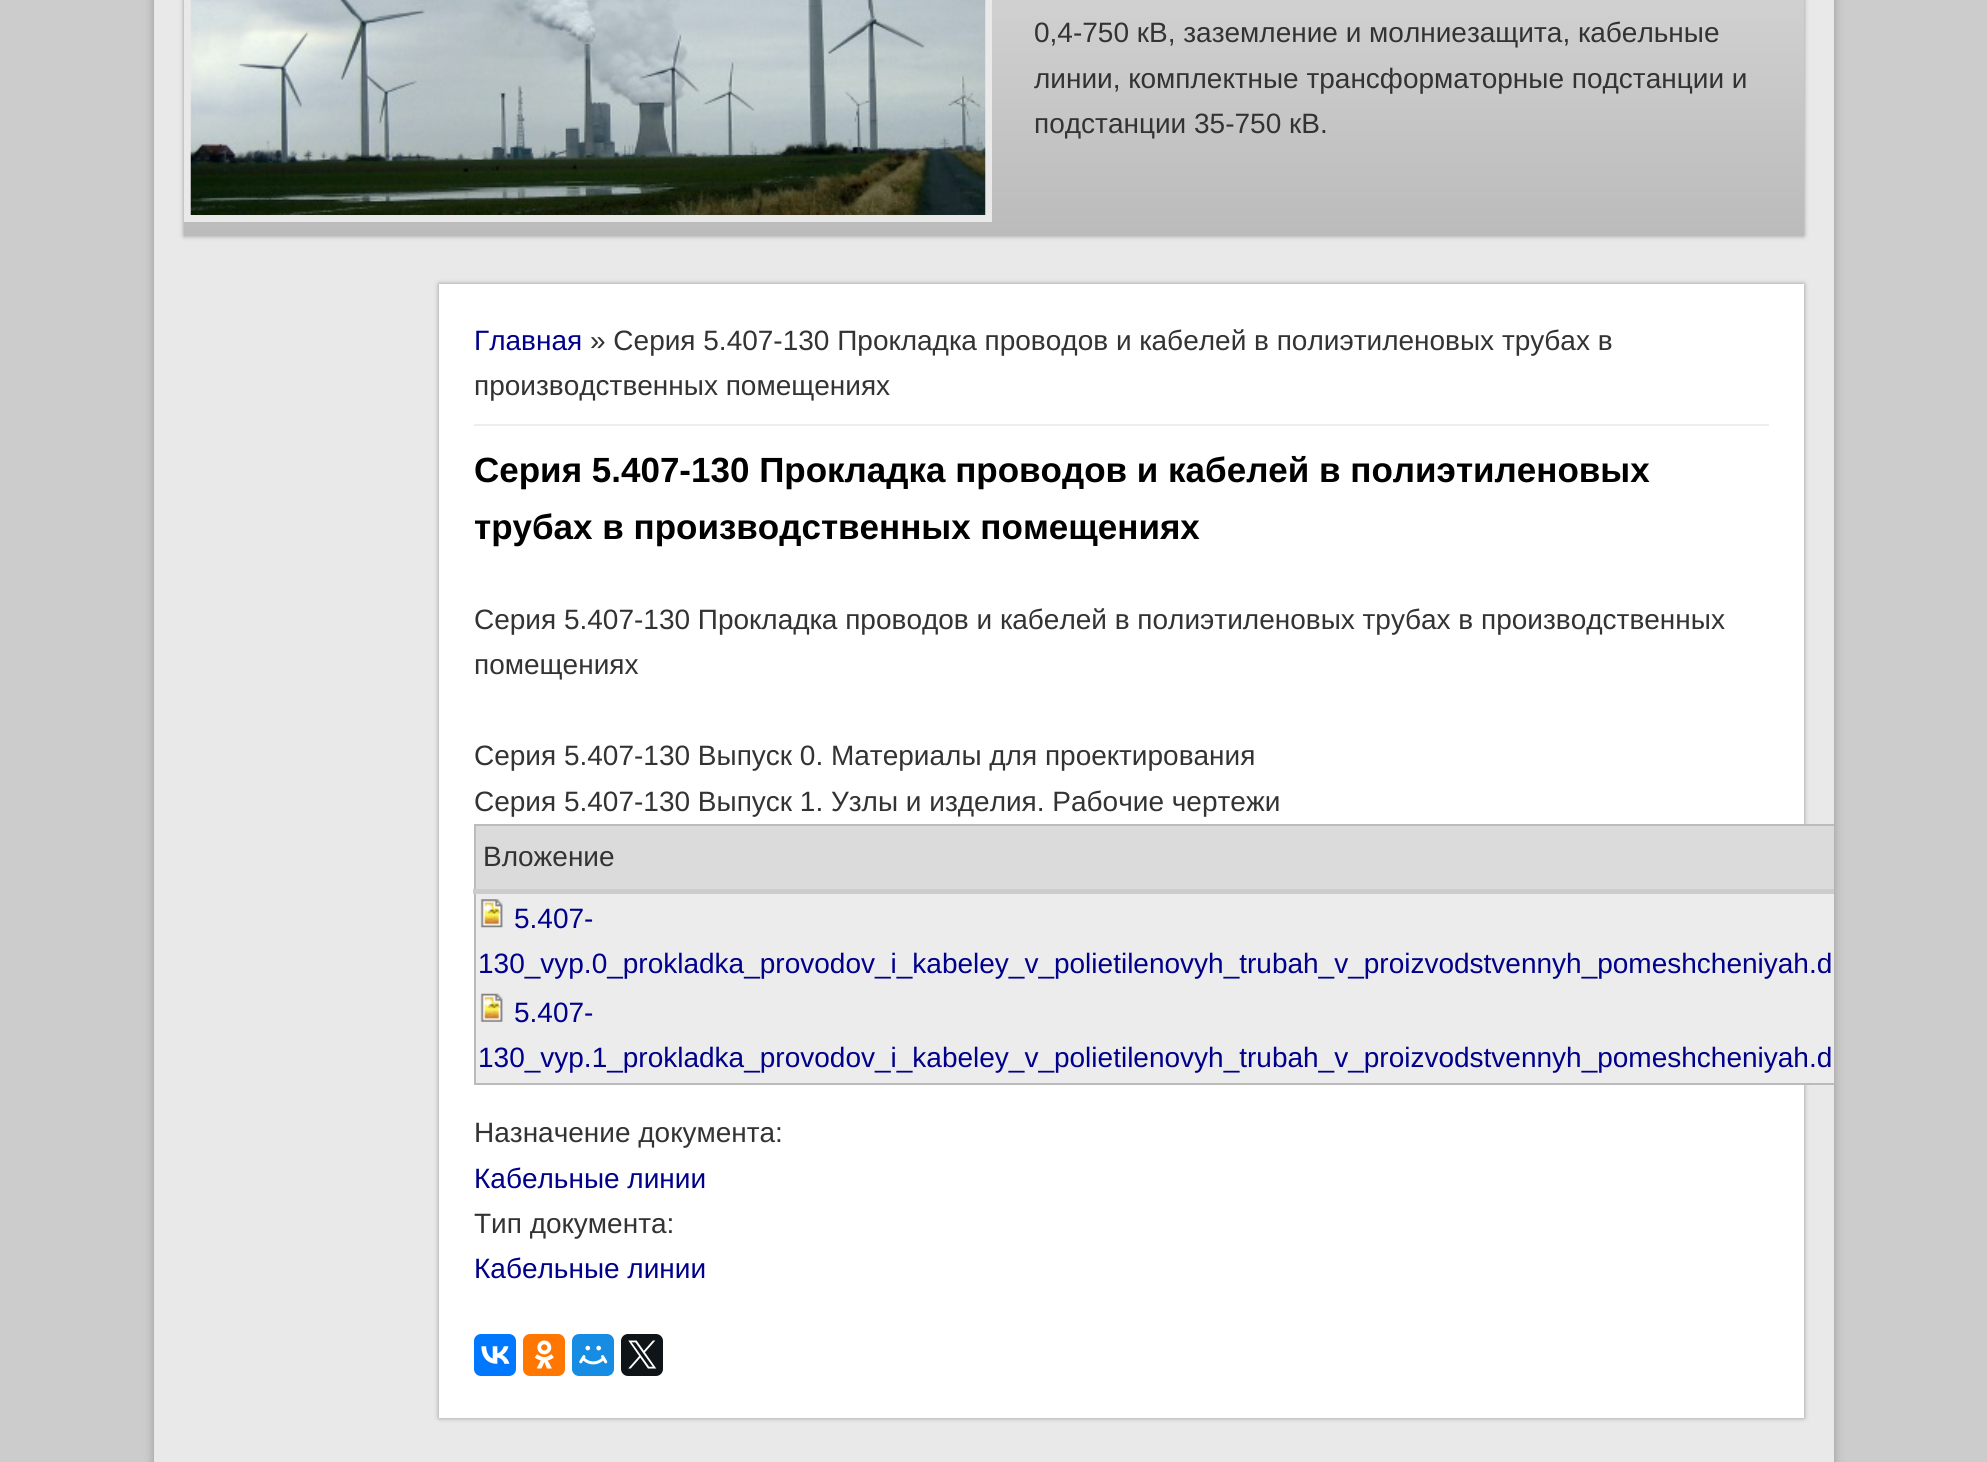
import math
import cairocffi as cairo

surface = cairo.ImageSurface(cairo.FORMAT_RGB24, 1987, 1462)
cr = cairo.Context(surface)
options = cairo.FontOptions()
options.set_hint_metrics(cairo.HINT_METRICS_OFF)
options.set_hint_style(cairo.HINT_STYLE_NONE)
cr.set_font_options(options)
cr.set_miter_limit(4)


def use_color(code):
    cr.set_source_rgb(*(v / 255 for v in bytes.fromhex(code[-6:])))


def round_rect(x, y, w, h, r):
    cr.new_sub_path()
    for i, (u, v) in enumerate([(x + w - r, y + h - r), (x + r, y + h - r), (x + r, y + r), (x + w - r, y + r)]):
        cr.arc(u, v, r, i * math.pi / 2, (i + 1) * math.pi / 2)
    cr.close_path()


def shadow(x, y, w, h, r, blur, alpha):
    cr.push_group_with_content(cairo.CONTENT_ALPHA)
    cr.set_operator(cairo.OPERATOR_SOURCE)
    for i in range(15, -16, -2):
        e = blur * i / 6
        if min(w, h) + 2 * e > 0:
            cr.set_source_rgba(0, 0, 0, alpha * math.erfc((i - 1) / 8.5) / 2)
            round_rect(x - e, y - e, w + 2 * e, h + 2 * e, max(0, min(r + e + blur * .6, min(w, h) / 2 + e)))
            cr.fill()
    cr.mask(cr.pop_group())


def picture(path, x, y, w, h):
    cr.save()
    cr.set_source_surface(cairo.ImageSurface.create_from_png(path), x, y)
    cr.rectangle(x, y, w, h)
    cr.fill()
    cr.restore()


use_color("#cccccc")
cr.paint()
use_color("#999999")
shadow(154, -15, 1680, 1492, 0, 5, 1)
use_color("#e9e9e9")
cr.rectangle(154, 0, 1680, 1462)
cr.fill()
use_color("#999999")
shadow(184, -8, 1620, 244, 0, 2.5, 1)
gradient = cairo.LinearGradient(994, -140, 994, 236)
gradient.add_color_stop_rgba(0, 0.867, 0.867, 0.867, 1)
gradient.add_color_stop_rgba(1, 0.733, 0.733, 0.733, 1)
cr.set_source(gradient)
cr.rectangle(184, 0, 1620, 236)
cr.fill()
use_color("#e9e9e9")
cr.rectangle(184, 0, 808, 222)
cr.fill()
picture("img1.png", 190, 0, 796, 215)
cr.select_font_face("Liberation Sans")
cr.set_font_size(28)
use_color("#333333")
cr.move_to(1034, 42)
cr.show_text("0,4-750 кВ, заземление и молниезащита, кабельные")
cr.move_to(1034, 88)
cr.show_text("линии, комплектные трансформаторные подстанции и")
cr.move_to(1034, 133)
cr.show_text("подстанции 35-750 кВ.")
use_color("#999999")
shadow(439, 284, 1365, 1134, 0, 2.5, 1)
use_color("#ffffff")
cr.rectangle(439, 284, 1365, 1134)
cr.fill()
use_color("#eeeeee")
cr.rectangle(474, 424, 1295, 2)
cr.fill()
use_color("#00008b")
cr.move_to(474, 350)
cr.show_text("Главная")
use_color("#333333")
cr.move_to(590, 350)
cr.show_text("» Серия 5.407-130 Прокладка проводов и кабелей в полиэтиленовых трубах в")
cr.move_to(474, 395)
cr.show_text("производственных помещениях")
cr.select_font_face("Liberation Sans", cairo.FONT_SLANT_NORMAL, cairo.FONT_WEIGHT_BOLD)
cr.set_font_size(35)
use_color("#000000")
cr.move_to(474, 482)
cr.show_text("Серия 5.407-130 Прокладка проводов и кабелей в полиэтиленовых")
cr.move_to(474, 539)
cr.show_text("трубах в производственных помещениях")
cr.select_font_face("Liberation Sans")
cr.set_font_size(28)
use_color("#333333")
cr.move_to(474, 629)
cr.show_text("Серия 5.407-130 Прокладка проводов и кабелей в полиэтиленовых трубах в производственных")
cr.move_to(474, 674)
cr.show_text("помещениях")
cr.move_to(474, 765)
cr.show_text("Серия 5.407-130 Выпуск 0. Материалы для проектирования")
cr.move_to(474, 811)
cr.show_text("Серия 5.407-130 Выпуск 1. Узлы и изделия. Рабочие чертежи")
use_color("#ececec")
cr.rectangle(476, 894, 1358, 189)
cr.fill()
use_color("#bbbbbb")
cr.rectangle(474, 824, 1360, 2)
cr.fill()
cr.rectangle(474, 1083, 1360, 2)
cr.fill()
cr.rectangle(474, 824, 2, 261)
cr.fill()
use_color("#dbdbdb")
cr.rectangle(476, 826, 1358, 63)
cr.fill()
use_color("#cccccc")
cr.rectangle(473, 889, 1361, 5)
cr.fill()
use_color("#333333")
cr.move_to(483, 866)
cr.show_text("Вложение")
picture("img2.png", 480, 899, 23, 29)
use_color("#00008b")
cr.move_to(514, 928)
cr.show_text("5.407-")
cr.move_to(478, 973)
cr.show_text("130_vyp.0_prokladka_provodov_i_kabeley_v_polietilenovyh_trubah_v_proizvodstvennyh_pomeshcheniyah.d")
picture("img3.png", 480, 993, 23, 29)
cr.move_to(514, 1022)
cr.show_text("5.407-")
cr.move_to(478, 1067)
cr.show_text("130_vyp.1_prokladka_provodov_i_kabeley_v_polietilenovyh_trubah_v_proizvodstvennyh_pomeshcheniyah.d")
use_color("#333333")
cr.move_to(474, 1142)
cr.show_text("Назначение документа:")
use_color("#00008b")
cr.move_to(474, 1188)
cr.show_text("Кабельные линии")
use_color("#333333")
cr.move_to(474, 1233)
cr.show_text("Тип документа:")
use_color("#00008b")
cr.move_to(474, 1278)
cr.show_text("Кабельные линии")
use_color("#0077ff")
round_rect(474, 1334, 42, 42, 7)
cr.fill()
picture("img4.png", 481, 1346, 29, 18)
use_color("#ff7700")
round_rect(523, 1334, 42, 42, 7)
cr.fill()
picture("img5.png", 534, 1340, 20, 29)
use_color("#168de2")
round_rect(572, 1334, 42, 42, 7)
cr.fill()
picture("img6.png", 579, 1345, 29, 20)
use_color("#0f1419")
round_rect(621, 1334, 42, 42, 7)
cr.fill()
picture("img7.png", 628, 1340, 29, 29)
surface.write_to_png("result.png")
